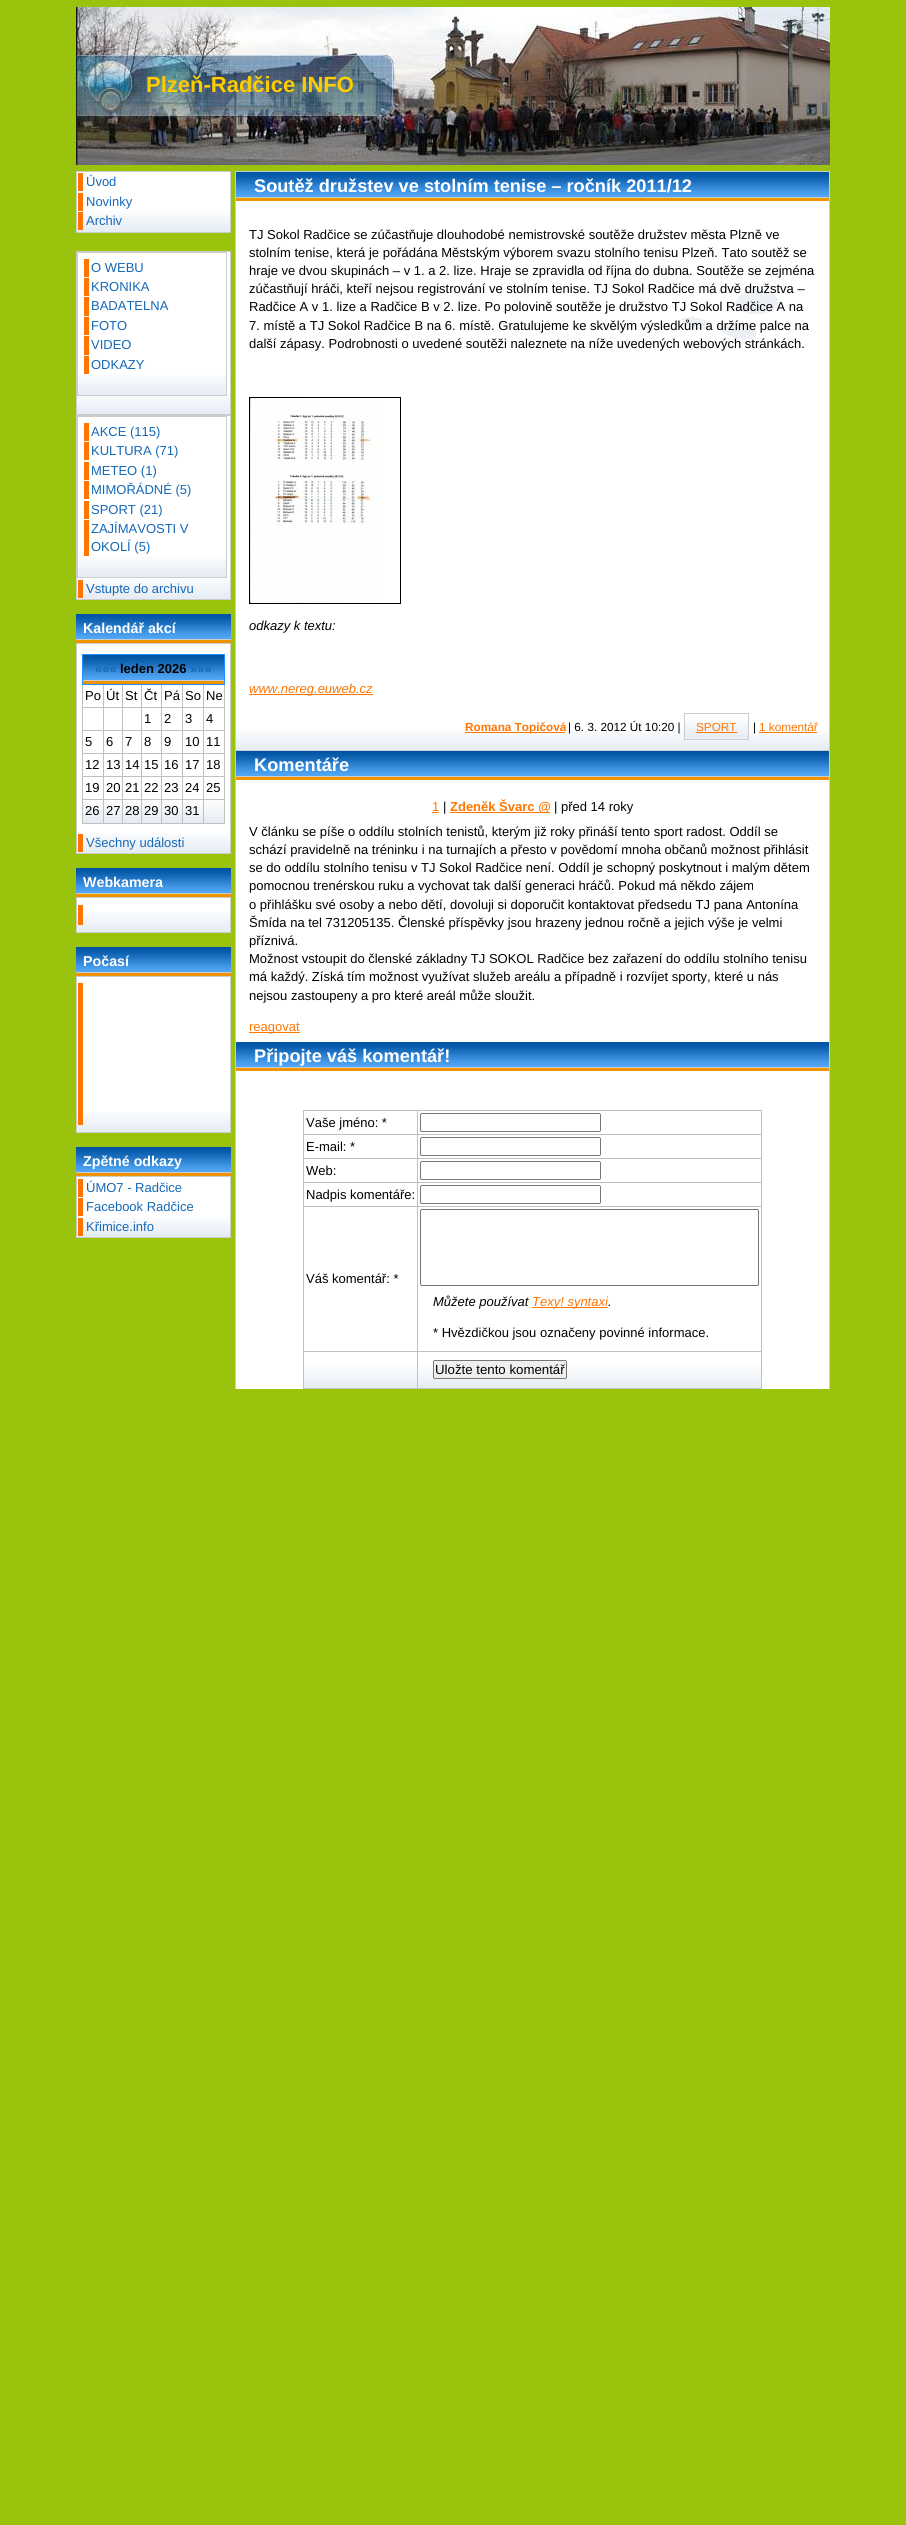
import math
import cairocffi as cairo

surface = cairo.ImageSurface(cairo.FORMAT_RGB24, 906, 2525)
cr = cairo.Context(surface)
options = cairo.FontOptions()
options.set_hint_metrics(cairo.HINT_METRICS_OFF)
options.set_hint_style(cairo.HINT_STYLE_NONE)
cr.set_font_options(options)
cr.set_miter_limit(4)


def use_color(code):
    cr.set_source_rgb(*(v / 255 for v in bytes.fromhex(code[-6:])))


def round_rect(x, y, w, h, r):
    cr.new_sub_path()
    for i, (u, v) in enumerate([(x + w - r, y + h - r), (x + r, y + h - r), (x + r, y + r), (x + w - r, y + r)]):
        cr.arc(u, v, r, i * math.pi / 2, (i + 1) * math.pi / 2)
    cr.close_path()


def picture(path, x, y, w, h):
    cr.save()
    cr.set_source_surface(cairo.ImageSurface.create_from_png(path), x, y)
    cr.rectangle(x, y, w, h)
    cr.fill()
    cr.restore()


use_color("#9ac30d")
cr.paint()
picture("img1.png", 76, 7, 754, 158)
cr.select_font_face("Liberation Sans", cairo.FONT_SLANT_NORMAL, cairo.FONT_WEIGHT_BOLD)
cr.set_font_size(22)
use_color("#ffcc00")
cr.move_to(146, 92)
cr.show_text("Plzeň-Radčice INFO")
use_color("#ffffff")
cr.rectangle(77, 172, 153, 40)
cr.fill()
picture("img2.png", 77, 212, 153, 20)
cr.rectangle(76.5, 171.5, 154, 61)
use_color("#cccccc")
cr.set_line_width(1)
cr.stroke()
use_color("#ff7500")
cr.rectangle(78, 173, 5, 18)
cr.fill()
cr.select_font_face("Liberation Sans")
cr.set_font_size(13)
use_color("#1468b7")
cr.move_to(86, 186)
cr.show_text("Úvod")
use_color("#ff7500")
cr.rectangle(78, 193, 5, 18)
cr.fill()
use_color("#1468b7")
cr.move_to(86, 206)
cr.show_text("Novinky")
use_color("#ff7500")
cr.rectangle(78, 212, 5, 18)
cr.fill()
use_color("#1468b7")
cr.move_to(86, 225)
cr.show_text("Archiv")
use_color("#ffffff")
cr.rectangle(227, 252, 3, 142)
cr.fill()
picture("img2.png", 77, 394, 153, 20)
cr.rectangle(76.5, 251.5, 154, 163)
use_color("#cccccc")
cr.stroke()
use_color("#ffffff")
cr.rectangle(78, 253, 148, 122)
cr.fill()
picture("img3.png", 78, 375, 148, 20)
cr.rectangle(77.5, 252.5, 149, 143)
use_color("#cccccc")
cr.stroke()
use_color("#ff7500")
cr.rectangle(84, 259, 5, 18)
cr.fill()
use_color("#1468b7")
cr.move_to(91, 272)
cr.show_text("O WEBU")
use_color("#ff7500")
cr.rectangle(84, 278, 5, 18)
cr.fill()
use_color("#1468b7")
cr.move_to(91, 291)
cr.show_text("KRONIKA")
use_color("#ff7500")
cr.rectangle(84, 297, 5, 19)
cr.fill()
use_color("#1468b7")
cr.move_to(91, 310)
cr.show_text("BADATELNA")
use_color("#ff7500")
cr.rectangle(84, 317, 5, 18)
cr.fill()
use_color("#1468b7")
cr.move_to(91, 330)
cr.show_text("FOTO")
use_color("#ff7500")
cr.rectangle(84, 336, 5, 19)
cr.fill()
use_color("#1468b7")
cr.move_to(91, 349)
cr.show_text("VIDEO")
use_color("#ff7500")
cr.rectangle(84, 356, 5, 18)
cr.fill()
use_color("#1468b7")
cr.move_to(91, 369)
cr.show_text("ODKAZY")
use_color("#ffffff")
cr.rectangle(77, 416, 153, 163)
cr.fill()
picture("img2.png", 77, 579, 153, 20)
cr.rectangle(76.5, 415.5, 154, 184)
use_color("#cccccc")
cr.stroke()
picture("img3.png", 78, 557, 148, 20)
cr.rectangle(77.5, 416.5, 149, 161)
cr.stroke()
use_color("#ff7500")
cr.rectangle(84, 423, 5, 18)
cr.fill()
use_color("#1468b7")
cr.move_to(91, 436)
cr.show_text("AKCE (115)")
use_color("#ff7500")
cr.rectangle(84, 442, 5, 18)
cr.fill()
use_color("#1468b7")
cr.move_to(91, 455)
cr.show_text("KULTURA (71)")
use_color("#ff7500")
cr.rectangle(84, 462, 5, 18)
cr.fill()
use_color("#1468b7")
cr.move_to(91, 475)
cr.show_text("METEO (1)")
use_color("#ff7500")
cr.rectangle(84, 481, 5, 18)
cr.fill()
use_color("#1468b7")
cr.move_to(91, 494)
cr.show_text("MIMOŘÁDNÉ (5)")
use_color("#ff7500")
cr.rectangle(84, 501, 5, 18)
cr.fill()
use_color("#1468b7")
cr.move_to(91, 514)
cr.show_text("SPORT (21)")
use_color("#ff7500")
cr.rectangle(84, 520, 5, 36)
cr.fill()
use_color("#1468b7")
cr.move_to(91, 533)
cr.show_text("ZAJÍMAVOSTI V")
cr.move_to(91, 551)
cr.show_text("OKOLÍ (5)")
use_color("#ff7500")
cr.rectangle(78, 580, 5, 18)
cr.fill()
use_color("#1468b7")
cr.move_to(86, 593)
cr.show_text("Vstupte do archivu")
picture("img4.png", 76, 614, 155, 29)
cr.select_font_face("Liberation Sans", cairo.FONT_SLANT_NORMAL, cairo.FONT_WEIGHT_BOLD)
cr.set_font_size(14.25)
use_color("#ffffff")
cr.move_to(83, 633)
cr.show_text("Kalendář akcí")
cr.rectangle(77, 644, 153, 189)
cr.fill()
picture("img2.png", 77, 833, 153, 20)
cr.rectangle(76.5, 643.5, 154, 210)
use_color("#cccccc")
cr.stroke()
picture("img5.png", 82, 654, 143, 170)
picture("img6.png", 83, 655, 141, 29)
cr.set_font_size(13)
use_color("#1468b7")
cr.move_to(95, 673)
cr.show_text("«««")
use_color("#000000")
cr.move_to(120, 673)
cr.show_text("leden 2026")
use_color("#1468b7")
cr.move_to(190, 673)
cr.show_text("»»»")
cr.select_font_face("Liberation Sans")
use_color("#000000")
cr.move_to(85, 700)
cr.show_text("Po")
cr.move_to(106, 700)
cr.show_text("Út")
cr.move_to(125, 700)
cr.show_text("St")
cr.move_to(144, 700)
cr.show_text("Čt")
cr.move_to(164, 700)
cr.show_text("Pá")
cr.move_to(185, 700)
cr.show_text("So")
cr.move_to(206, 700)
cr.show_text("Ne")
cr.move_to(144, 723)
cr.show_text("1")
cr.move_to(164, 723)
cr.show_text("2")
cr.move_to(185, 723)
cr.show_text("3")
cr.move_to(206, 723)
cr.show_text("4")
cr.move_to(85, 746)
cr.show_text("5")
cr.move_to(106, 746)
cr.show_text("6")
cr.move_to(125, 746)
cr.show_text("7")
cr.move_to(144, 746)
cr.show_text("8")
cr.move_to(164, 746)
cr.show_text("9")
cr.move_to(185, 746)
cr.show_text("10")
cr.move_to(206, 746)
cr.show_text("11")
cr.move_to(85, 769)
cr.show_text("12")
cr.move_to(106, 769)
cr.show_text("13")
cr.move_to(125, 769)
cr.show_text("14")
cr.move_to(144, 769)
cr.show_text("15")
cr.move_to(164, 769)
cr.show_text("16")
cr.move_to(185, 769)
cr.show_text("17")
cr.move_to(206, 769)
cr.show_text("18")
cr.move_to(85, 792)
cr.show_text("19")
cr.move_to(106, 792)
cr.show_text("20")
cr.move_to(125, 792)
cr.show_text("21")
cr.move_to(144, 792)
cr.show_text("22")
cr.move_to(164, 792)
cr.show_text("23")
cr.move_to(185, 792)
cr.show_text("24")
cr.move_to(206, 792)
cr.show_text("25")
cr.move_to(85, 815)
cr.show_text("26")
cr.move_to(106, 815)
cr.show_text("27")
cr.move_to(125, 815)
cr.show_text("28")
cr.move_to(144, 815)
cr.show_text("29")
cr.move_to(164, 815)
cr.show_text("30")
cr.move_to(185, 815)
cr.show_text("31")
use_color("#ff7500")
cr.rectangle(78, 834, 5, 18)
cr.fill()
use_color("#1468b7")
cr.move_to(86, 847)
cr.show_text("Všechny události")
picture("img4.png", 76, 868, 155, 29)
cr.select_font_face("Liberation Sans", cairo.FONT_SLANT_NORMAL, cairo.FONT_WEIGHT_BOLD)
cr.set_font_size(14.25)
use_color("#ffffff")
cr.move_to(83, 887)
cr.show_text("Webkamera")
cr.rectangle(77, 898, 153, 14)
cr.fill()
picture("img2.png", 77, 912, 153, 20)
cr.rectangle(76.5, 897.5, 154, 35)
use_color("#cccccc")
cr.stroke()
use_color("#ff7500")
cr.rectangle(78, 905, 5, 20)
cr.fill()
picture("img4.png", 76, 947, 155, 29)
use_color("#ffffff")
cr.move_to(83, 966)
cr.show_text("Počasí")
cr.rectangle(77, 977, 153, 135)
cr.fill()
picture("img2.png", 77, 1112, 153, 20)
cr.rectangle(76.5, 976.5, 154, 156)
use_color("#cccccc")
cr.stroke()
use_color("#ff7500")
cr.rectangle(78, 983, 5, 142)
cr.fill()
picture("img4.png", 76, 1147, 155, 29)
use_color("#ffffff")
cr.move_to(83, 1166)
cr.show_text("Zpětné odkazy")
cr.rectangle(77, 1177, 153, 40)
cr.fill()
picture("img2.png", 77, 1217, 153, 20)
cr.rectangle(76.5, 1176.5, 154, 61)
use_color("#cccccc")
cr.stroke()
use_color("#ff7500")
cr.rectangle(78, 1179, 5, 18)
cr.fill()
cr.select_font_face("Liberation Sans")
cr.set_font_size(13)
use_color("#1468b7")
cr.move_to(86, 1192)
cr.show_text("ÚMO7 - Radčice")
use_color("#ff7500")
cr.rectangle(78, 1198, 5, 18)
cr.fill()
use_color("#1468b7")
cr.move_to(86, 1211)
cr.show_text("Facebook Radčice")
use_color("#ff7500")
cr.rectangle(78, 1218, 5, 18)
cr.fill()
use_color("#1468b7")
cr.move_to(86, 1231)
cr.show_text("Křimice.info")
use_color("#ffffff")
cr.rectangle(236, 201, 593, 1188)
cr.fill()
picture("img7.png", 681, 290, 97, 50)
use_color("#cccccc")
cr.rectangle(235, 171, 595, 1)
cr.fill()
cr.rectangle(829, 171, 1, 1218)
cr.fill()
cr.rectangle(235, 171, 1, 1218)
cr.fill()
picture("img8.png", 236, 172, 593, 29)
cr.select_font_face("Liberation Sans", cairo.FONT_SLANT_NORMAL, cairo.FONT_WEIGHT_BOLD)
cr.set_font_size(18.2)
use_color("#ffffff")
cr.move_to(254, 192)
cr.show_text("Soutěž družstev ve stolním tenise – ročník 2011/12")
cr.select_font_face("Liberation Sans")
cr.set_font_size(13)
use_color("#000000")
cr.move_to(249, 239)
cr.show_text("TJ Sokol Radčice se zúčastňuje dlouhodobé nemistrovské soutěže družstev města Plzně ve")
cr.move_to(249, 257)
cr.show_text("stolním tenise, která je pořádána Městským výborem svazu stolního tenisu Plzeň. Tato soutěž se")
cr.move_to(249, 275)
cr.show_text("hraje ve dvou skupinách – v 1. a 2. lize. Hraje se zpravidla od října do dubna. Soutěže se zejména")
cr.move_to(249, 293)
cr.show_text("zúčastňují hráči, kteří nejsou registrování ve stolním tenise. TJ Sokol Radčice má dvě družstva –")
cr.move_to(249, 311)
cr.show_text("Radčice A v 1. lize a Radčice B v 2. lize. Po polovině soutěže je družstvo TJ Sokol Radčice A na")
cr.move_to(249, 330)
cr.show_text("7. místě a TJ Sokol Radčice B na 6. místě. Gratulujeme ke skvělým výsledkům a držíme palce na")
cr.move_to(249, 348)
cr.show_text("další zápasy. Podrobnosti o uvedené soutěži naleznete na níže uvedených webových stránkách.")
cr.rectangle(249.5, 397.5, 151, 206)
cr.stroke()
picture("img9.png", 250, 398, 128, 205)
cr.select_font_face("Liberation Sans", cairo.FONT_SLANT_ITALIC)
cr.move_to(249, 630)
cr.show_text("odkazy k textu:")
use_color("#ff7500")
cr.rectangle(249, 694, 124, 1)
cr.fill()
cr.move_to(249, 693)
cr.show_text("www.nereg.euweb.cz")
picture("img10.png", 236, 730, 593, 20)
use_color("#cccccc")
cr.rectangle(236, 750, 593, 1)
cr.fill()
use_color("#ff7500")
cr.rectangle(465, 732, 100, 1)
cr.fill()
cr.select_font_face("Liberation Sans", cairo.FONT_SLANT_NORMAL, cairo.FONT_WEIGHT_BOLD)
cr.set_font_size(11.75)
cr.move_to(465, 731)
cr.show_text("Romana Topičová")
cr.select_font_face("Liberation Sans")
use_color("#000000")
cr.move_to(568, 731)
cr.show_text("| 6. 3. 2012 Út 10:20 |")
picture("img11.png", 685, 719, 63, 20)
cr.rectangle(684.5, 713.5, 64, 26)
use_color("#cccccc")
cr.stroke()
use_color("#ff7500")
cr.move_to(696, 731)
cr.show_text("SPORT")
cr.rectangle(696, 732, 41, 1)
cr.fill()
use_color("#000000")
cr.move_to(753, 731)
cr.show_text("|")
use_color("#ff7500")
cr.move_to(759, 731)
cr.show_text("1 komentář")
cr.rectangle(759, 732, 58, 1)
cr.fill()
picture("img8.png", 236, 751, 593, 29)
cr.select_font_face("Liberation Sans", cairo.FONT_SLANT_NORMAL, cairo.FONT_WEIGHT_BOLD)
cr.set_font_size(18.2)
use_color("#ffffff")
cr.move_to(254, 771)
cr.show_text("Komentáře")
cr.select_font_face("Liberation Sans")
cr.set_font_size(13)
use_color("#ff7500")
cr.move_to(432, 811)
cr.show_text("1")
cr.rectangle(432, 812, 7, 1)
cr.fill()
use_color("#000000")
cr.move_to(443, 811)
cr.show_text("|")
use_color("#ff7500")
cr.rectangle(450, 812, 100, 1)
cr.fill()
cr.select_font_face("Liberation Sans", cairo.FONT_SLANT_NORMAL, cairo.FONT_WEIGHT_BOLD)
cr.move_to(450, 811)
cr.show_text("Zdeněk Švarc @")
cr.select_font_face("Liberation Sans")
use_color("#000000")
cr.move_to(554, 811)
cr.show_text("| před 14 roky")
cr.move_to(249, 836)
cr.show_text("V článku se píše o oddílu stolních tenistů, kterým již roky přináší tento sport radost. Oddíl se")
cr.move_to(249, 854)
cr.show_text("schází pravidelně na tréninku i na turnajích a přesto v povědomí mnoha občanů možnost přihlásit")
cr.move_to(249, 872)
cr.show_text("se do oddílu stolního tenisu v TJ Sokol Radčice není. Oddíl je schopný poskytnout i malým dětem")
cr.move_to(249, 890)
cr.show_text("pomocnou trenérskou ruku a vychovat tak další generaci hráčů. Pokud má někdo zájem")
cr.move_to(249, 909)
cr.show_text("o přihlášku své osoby a nebo dětí, dovoluji si doporučit kontaktovat předsedu TJ pana Antonína")
cr.move_to(249, 927)
cr.show_text("Šmída na tel 731205135. Členské příspěvky jsou hrazeny jednou ročně a jejich výše je velmi")
cr.move_to(249, 945)
cr.show_text("příznivá.")
cr.move_to(249, 963)
cr.show_text("Možnost vstoupit do členské základny TJ SOKOL Radčice bez zařazení do oddílu stolního tenisu")
cr.move_to(249, 981)
cr.show_text("má každý. Získá tím možnost využívat služeb areálu a případně i rozvíjet sporty, které u nás")
cr.move_to(249, 1000)
cr.show_text("nejsou zastoupeny a pro které areál může sloužit.")
use_color("#ff7500")
cr.rectangle(249, 1032, 51, 1)
cr.fill()
cr.move_to(249, 1031)
cr.show_text("reagovat")
picture("img8.png", 236, 1042, 593, 29)
cr.select_font_face("Liberation Sans", cairo.FONT_SLANT_NORMAL, cairo.FONT_WEIGHT_BOLD)
cr.set_font_size(18.2)
use_color("#ffffff")
cr.move_to(254, 1062)
cr.show_text("Připojte váš komentář!")
picture("img12.png", 303, 1110, 459, 279)
cr.select_font_face("Liberation Sans")
cr.set_font_size(13)
use_color("#000000")
cr.move_to(306, 1127)
cr.show_text("Vaše jméno: *")
round_rect(420.5, 1113.5, 180, 18, 1.5)
use_color("#767676")
cr.stroke()
use_color("#000000")
cr.move_to(306, 1151)
cr.show_text("E-mail: *")
round_rect(420.5, 1137.5, 180, 18, 1.5)
use_color("#767676")
cr.stroke()
use_color("#000000")
cr.move_to(306, 1175)
cr.show_text("Web:")
round_rect(420.5, 1161.5, 180, 18, 1.5)
use_color("#767676")
cr.stroke()
use_color("#000000")
cr.move_to(306, 1199)
cr.show_text("Nadpis komentáře:")
round_rect(420.5, 1185.5, 180, 18, 1.5)
use_color("#767676")
cr.stroke()
use_color("#000000")
cr.move_to(306, 1283)
cr.show_text("Váš komentář: *")
round_rect(420.5, 1209.5, 338, 76, 1.5)
use_color("#767676")
cr.stroke()
cr.select_font_face("Liberation Sans", cairo.FONT_SLANT_ITALIC)
use_color("#000000")
cr.move_to(433, 1306)
cr.show_text("Můžete používat")
use_color("#ff7500")
cr.rectangle(532, 1307, 76, 1)
cr.fill()
cr.move_to(532, 1306)
cr.show_text("Texy! syntaxi")
use_color("#000000")
cr.move_to(608, 1306)
cr.show_text(".")
cr.select_font_face("Liberation Sans")
cr.move_to(433, 1337)
cr.show_text("* Hvězdičkou jsou označeny povinné informace.")
use_color("#efefef")
round_rect(433.5, 1360.5, 133, 18, 1.5)
cr.fill_preserve()
use_color("#767676")
cr.stroke()
cr.set_font_size(13.25)
use_color("#000000")
cr.move_to(435, 1374)
cr.show_text("Uložte tento komentář")
surface.write_to_png("result.png")
